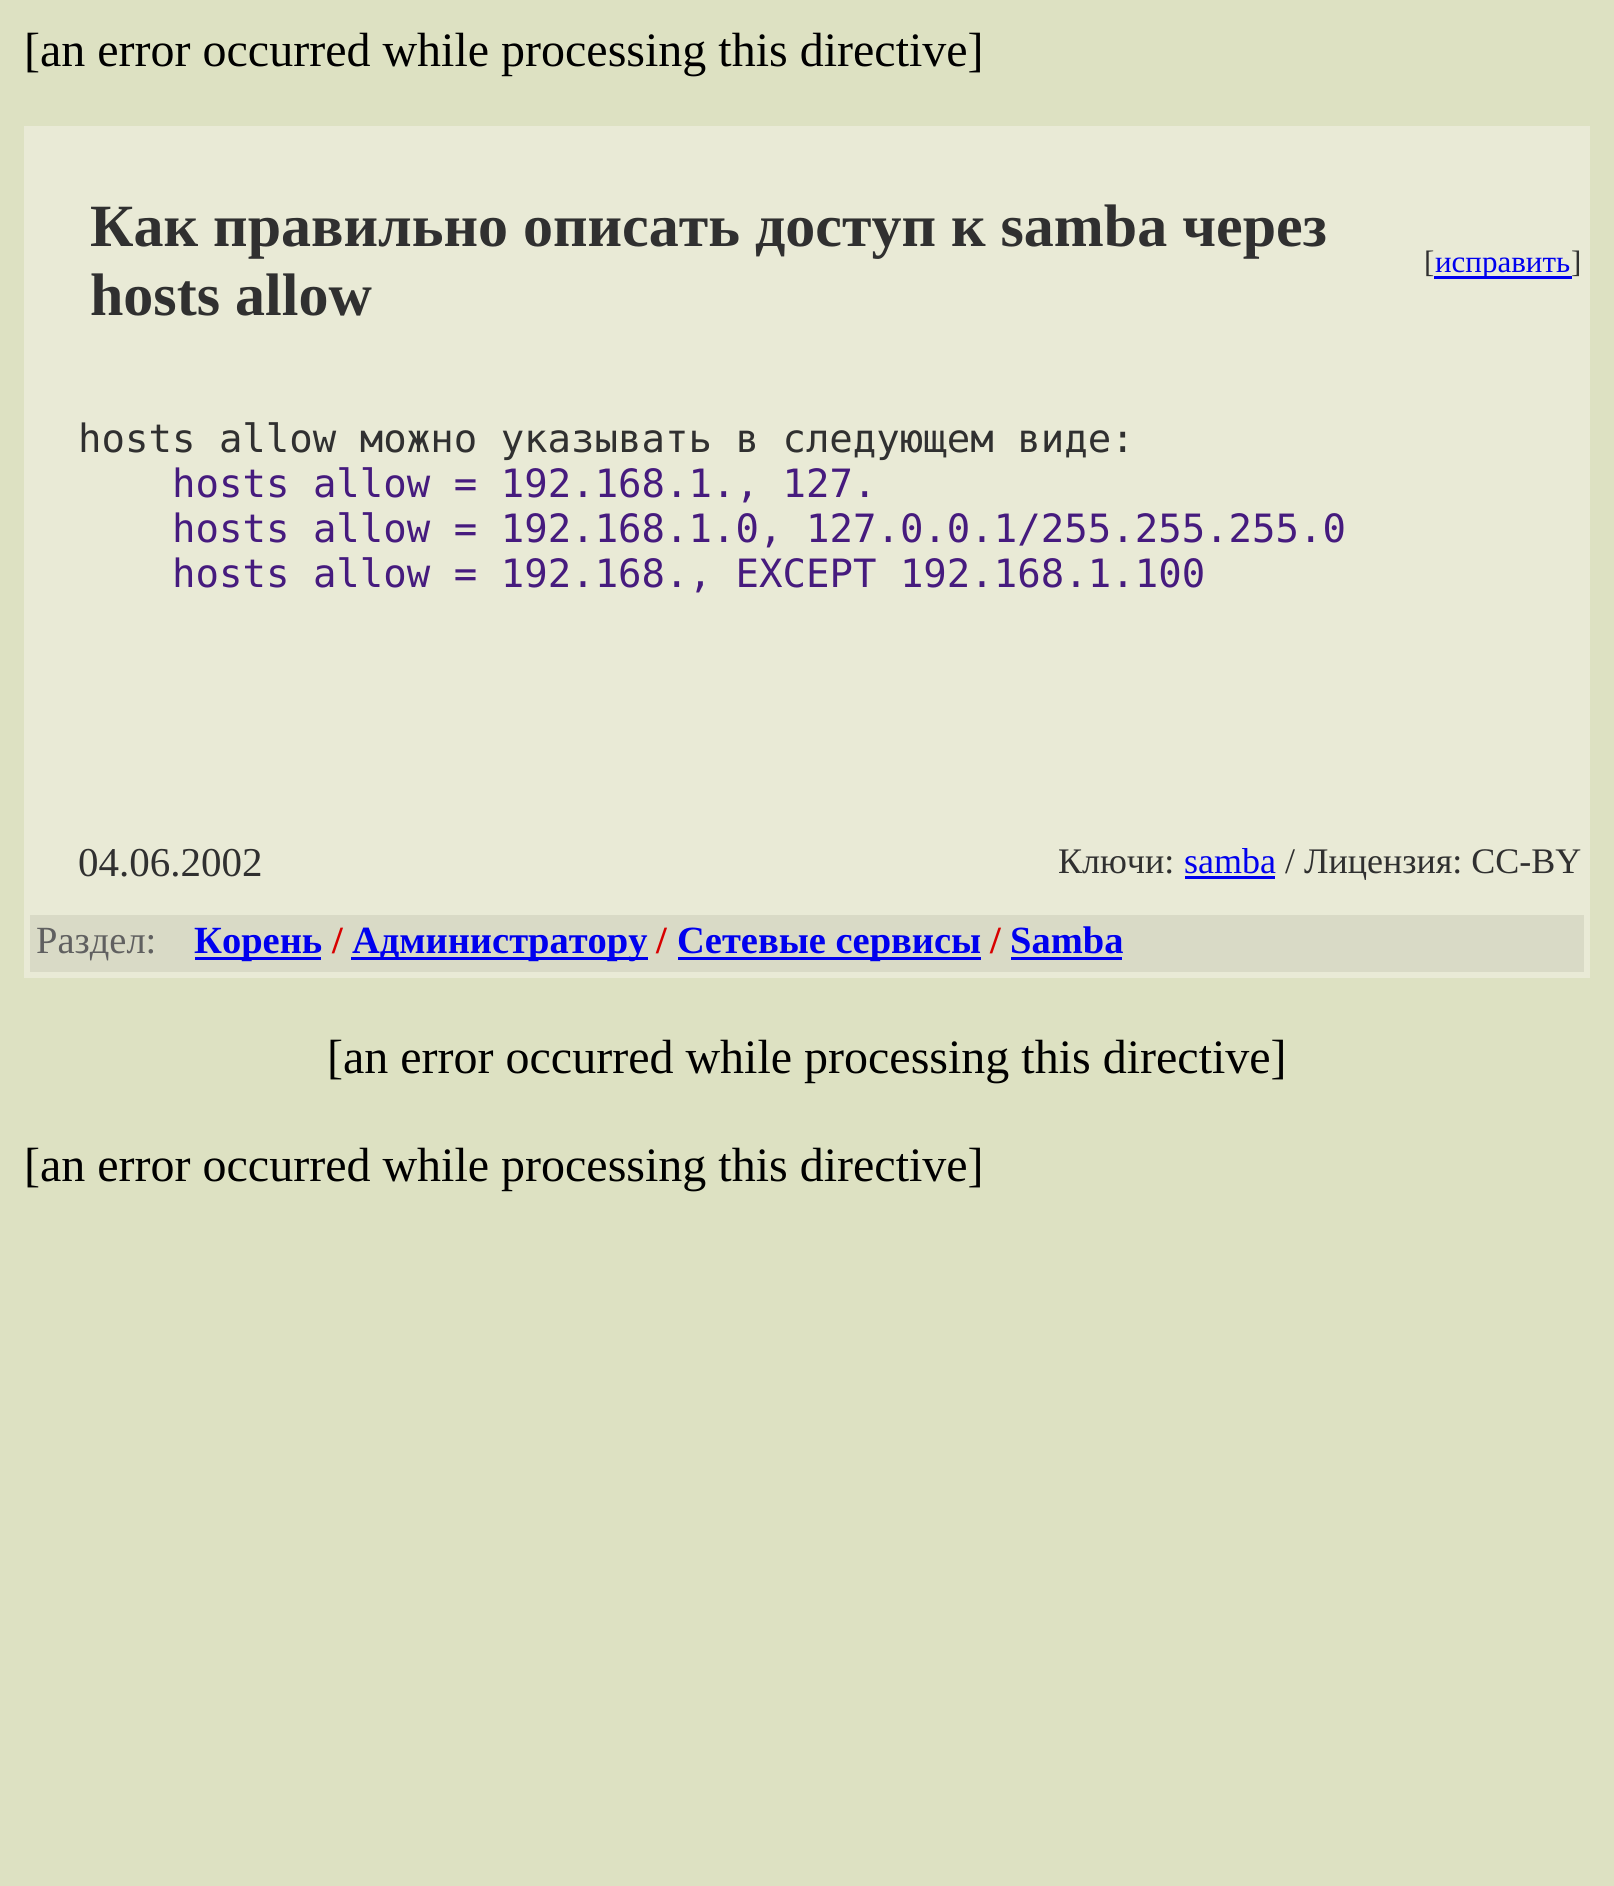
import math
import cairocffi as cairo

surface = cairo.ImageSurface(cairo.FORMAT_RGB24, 1614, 1886)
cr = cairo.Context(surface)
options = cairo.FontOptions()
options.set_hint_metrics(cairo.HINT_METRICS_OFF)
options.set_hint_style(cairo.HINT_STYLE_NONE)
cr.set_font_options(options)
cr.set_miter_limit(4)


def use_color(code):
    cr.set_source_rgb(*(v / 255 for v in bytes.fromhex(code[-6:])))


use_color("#dde1c2")
cr.paint()
cr.select_font_face("Liberation Serif")
cr.set_font_size(48)
use_color("#000000")
cr.move_to(24, 66)
cr.show_text("[an error occurred while processing this directive]")
use_color("#e9ead6")
cr.rectangle(24, 126, 1566, 852)
cr.fill()
cr.select_font_face("Liberation Serif", cairo.FONT_SLANT_NORMAL, cairo.FONT_WEIGHT_BOLD)
cr.set_font_size(60)
use_color("#303030")
cr.move_to(90, 246)
cr.show_text("Как правильно описать доступ к samba через")
cr.move_to(90, 315)
cr.show_text("hosts allow")
cr.select_font_face("Liberation Serif")
cr.set_font_size(31)
cr.move_to(1424, 272)
cr.show_text("[")
use_color("#0000ee")
cr.rectangle(1434, 276, 138, 3)
cr.fill()
cr.move_to(1435, 272)
cr.show_text("исправить")
use_color("#303030")
cr.move_to(1571, 272)
cr.show_text("]")
cr.select_font_face("DejaVu Sans Mono")
cr.set_font_size(39)
cr.move_to(78, 452)
cr.show_text("hosts allow можно указывать в следующем виде:")
use_color("#461b7e")
cr.move_to(172, 497)
cr.show_text("hosts allow = 192.168.1., 127.")
cr.move_to(172, 542)
cr.show_text("hosts allow = 192.168.1.0, 127.0.0.1/255.255.255.0")
cr.move_to(172, 587)
cr.show_text("hosts allow = 192.168., EXCEPT 192.168.1.100")
cr.select_font_face("Liberation Serif")
cr.set_font_size(41)
use_color("#303030")
cr.move_to(78, 876)
cr.show_text("04.06.2002")
cr.set_font_size(36)
cr.move_to(1058, 873)
cr.show_text("Ключи:")
use_color("#0000ee")
cr.move_to(1184, 873)
cr.show_text("samba")
cr.rectangle(1185, 876, 90, 3)
cr.fill()
use_color("#303030")
cr.move_to(1285, 873)
cr.show_text("/ Лицензия: CC-BY")
use_color("#d9dac6")
cr.rectangle(30, 915, 1554, 57)
cr.fill()
cr.set_font_size(38.5)
use_color("#606060")
cr.move_to(36, 953)
cr.show_text("Раздел:")
use_color("#0000ee")
cr.rectangle(195, 957, 126, 3)
cr.fill()
cr.select_font_face("Liberation Serif", cairo.FONT_SLANT_NORMAL, cairo.FONT_WEIGHT_BOLD)
cr.move_to(194, 953)
cr.show_text("Корень")
use_color("#d80000")
cr.move_to(332, 953)
cr.show_text("/")
use_color("#0000ee")
cr.rectangle(351, 957, 297, 3)
cr.fill()
cr.move_to(352, 953)
cr.show_text("Администратору")
use_color("#d80000")
cr.move_to(656, 953)
cr.show_text("/")
use_color("#0000ee")
cr.rectangle(678, 957, 303, 3)
cr.fill()
cr.move_to(677, 953)
cr.show_text("Сетевые сервисы")
use_color("#d80000")
cr.move_to(990, 953)
cr.show_text("/")
use_color("#0000ee")
cr.move_to(1010, 953)
cr.show_text("Samba")
cr.rectangle(1011, 957, 111, 3)
cr.fill()
cr.select_font_face("Liberation Serif")
cr.set_font_size(48)
use_color("#000000")
cr.move_to(327, 1073)
cr.show_text("[an error occurred while processing this directive]")
cr.move_to(24, 1181)
cr.show_text("[an error occurred while processing this directive]")
surface.write_to_png("result.png")
